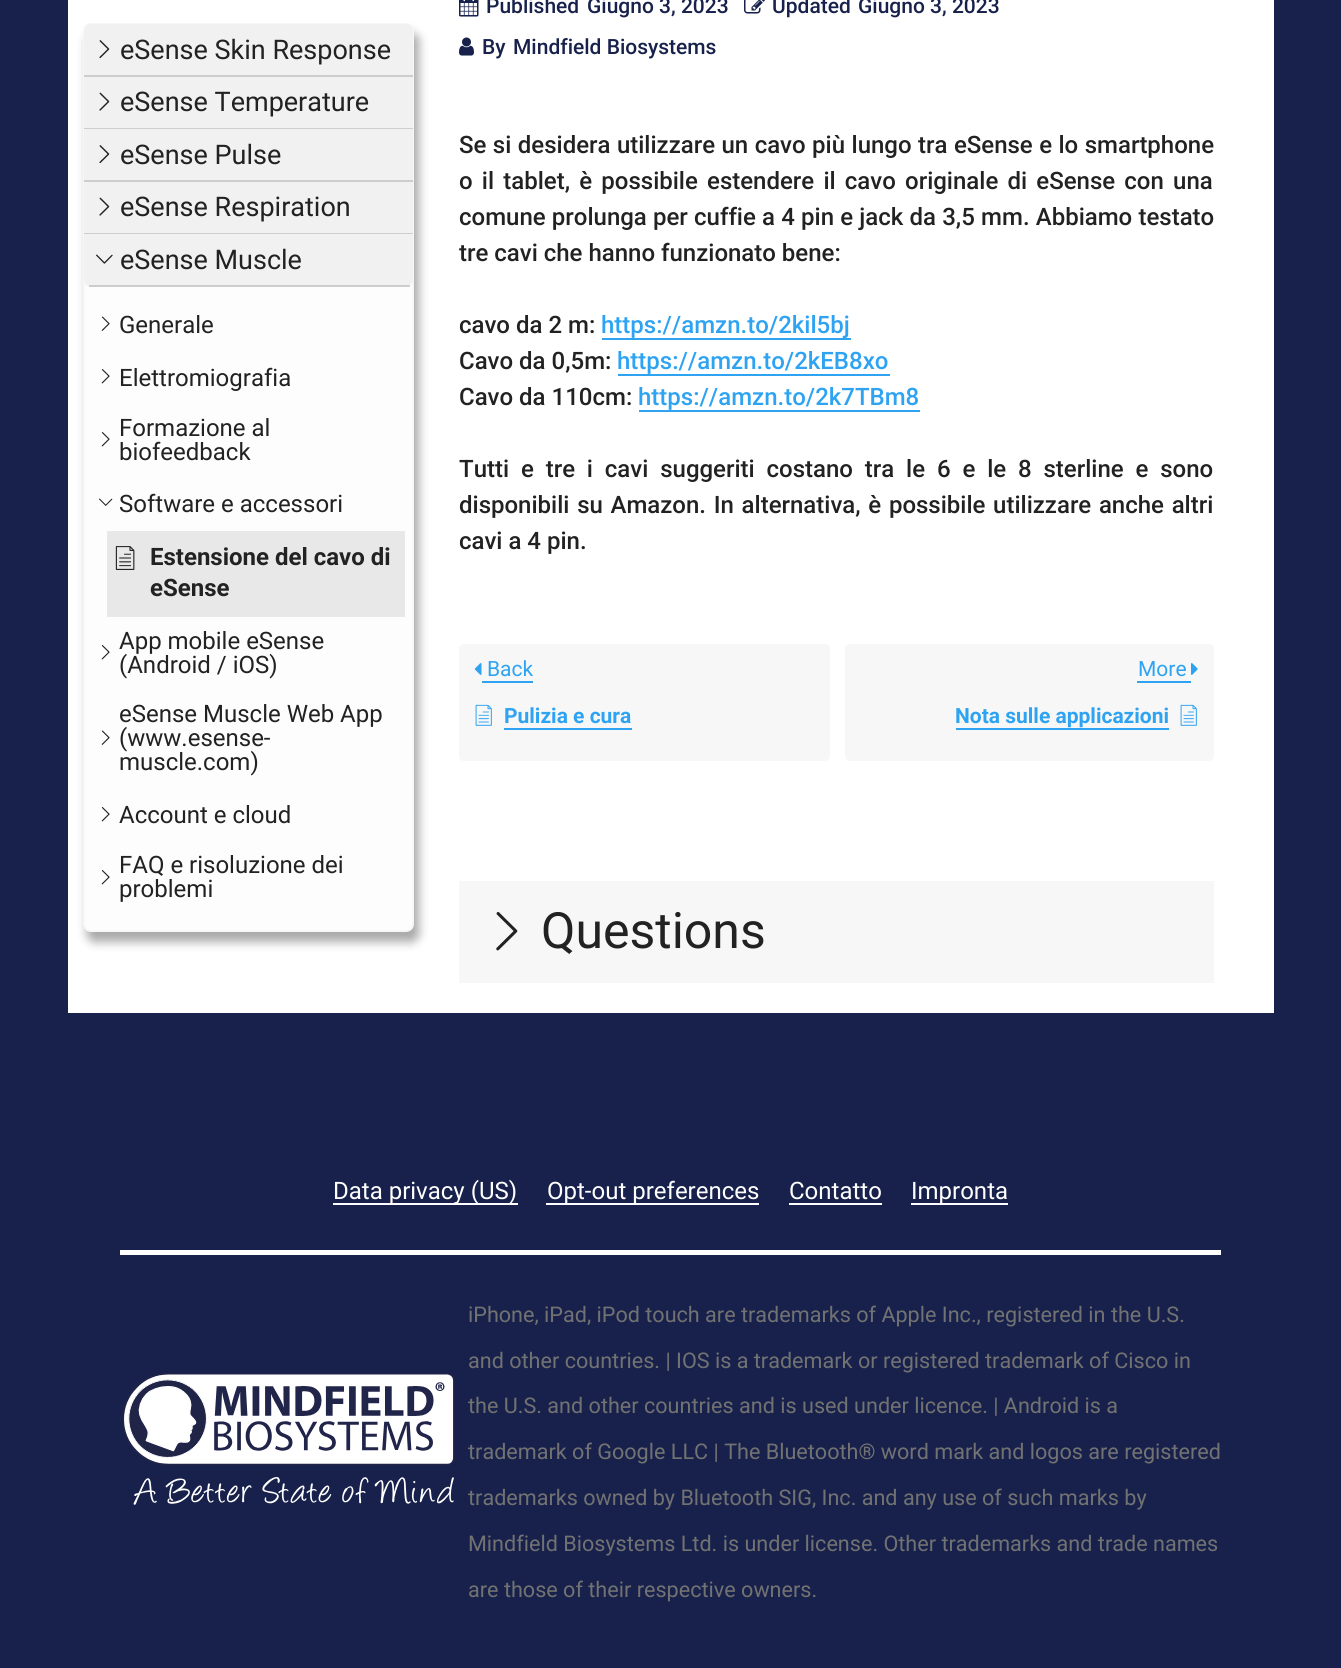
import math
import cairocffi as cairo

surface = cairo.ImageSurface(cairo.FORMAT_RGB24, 1341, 1668)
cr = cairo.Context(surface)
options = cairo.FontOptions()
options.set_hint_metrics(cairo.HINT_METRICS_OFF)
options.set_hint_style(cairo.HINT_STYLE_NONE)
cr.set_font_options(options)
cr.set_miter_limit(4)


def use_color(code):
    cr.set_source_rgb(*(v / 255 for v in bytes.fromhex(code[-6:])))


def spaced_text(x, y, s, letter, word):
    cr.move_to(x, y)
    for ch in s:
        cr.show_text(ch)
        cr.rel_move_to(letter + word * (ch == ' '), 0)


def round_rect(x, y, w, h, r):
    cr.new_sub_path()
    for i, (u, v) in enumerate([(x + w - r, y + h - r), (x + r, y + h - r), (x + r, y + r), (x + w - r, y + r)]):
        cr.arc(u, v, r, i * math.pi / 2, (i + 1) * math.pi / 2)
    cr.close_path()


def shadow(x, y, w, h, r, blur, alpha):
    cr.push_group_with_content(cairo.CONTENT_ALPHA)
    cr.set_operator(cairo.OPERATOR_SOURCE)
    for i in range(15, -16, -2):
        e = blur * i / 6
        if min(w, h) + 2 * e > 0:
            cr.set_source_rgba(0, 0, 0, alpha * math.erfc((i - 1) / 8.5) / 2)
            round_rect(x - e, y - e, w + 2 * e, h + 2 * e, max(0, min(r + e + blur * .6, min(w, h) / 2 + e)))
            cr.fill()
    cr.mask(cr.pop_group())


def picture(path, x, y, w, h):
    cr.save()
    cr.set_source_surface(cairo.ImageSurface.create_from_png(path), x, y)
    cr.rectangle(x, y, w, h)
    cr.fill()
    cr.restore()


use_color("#17214b")
cr.paint()
use_color("#ffffff")
cr.rectangle(68, 0, 361, 1013)
cr.fill()
use_color("#000000")
shadow(87, 33, 332, 909, 8, 5, 0.34)
use_color("#fdfdfd")
round_rect(84, 24, 329, 907, 7)
cr.fill_preserve()
use_color("#f7f7f7")
cr.stroke()
use_color("#f1f1f1")
cr.new_path()
cr.move_to(92, 24)
cr.line_to(405, 24)
cr.curve_to(409.5, 24, 413, 27.5, 413, 32)
cr.line_to(413, 77)
cr.line_to(84, 77)
cr.line_to(84, 32)
cr.curve_to(84, 27.5, 87.5, 24, 92, 24)
cr.close_path()
cr.fill()
use_color("#cdcdcd")
cr.rectangle(84, 75, 329, 2)
cr.fill()
picture("img1.png", 99, 40, 11, 19)
cr.select_font_face("Roboto")
cr.set_font_size(27)
use_color("#222222")
cr.move_to(120, 59)
cr.show_text("eSense Skin Response")
use_color("#f1f1f1")
cr.rectangle(84, 77, 329, 51)
cr.fill()
use_color("#cdcdcd")
cr.rectangle(84, 128, 329, 1)
cr.fill()
picture("img2.png", 99, 92, 11, 19)
use_color("#222222")
cr.move_to(120, 111)
cr.show_text("eSense Temperature")
use_color("#f1f1f1")
cr.rectangle(84, 129, 329, 51)
cr.fill()
use_color("#cdcdcd")
cr.rectangle(84, 180, 329, 2)
cr.fill()
picture("img1.png", 99, 145, 11, 19)
use_color("#222222")
cr.move_to(120, 164)
cr.show_text("eSense Pulse")
use_color("#f1f1f1")
cr.rectangle(84, 182, 329, 51)
cr.fill()
use_color("#cdcdcd")
cr.rectangle(84, 233, 329, 1)
cr.fill()
picture("img2.png", 99, 197, 11, 19)
use_color("#222222")
cr.move_to(120, 216)
cr.show_text("eSense Respiration")
use_color("#f1f1f1")
cr.new_path()
cr.move_to(84, 234)
cr.line_to(413, 234)
cr.line_to(413, 279)
cr.curve_to(413, 283.5, 409.5, 287, 405, 287)
cr.line_to(92, 287)
cr.curve_to(87.5, 287, 84, 283.5, 84, 279)
cr.close_path()
cr.fill()
use_color("#cdcdcd")
cr.rectangle(89, 285, 321, 2)
cr.fill()
picture("img3.png", 96, 254, 17, 10)
use_color("#222222")
cr.move_to(120, 269)
cr.show_text("eSense Muscle")
picture("img4.png", 101, 316, 9, 15)
cr.set_font_size(24)
cr.move_to(119, 333)
cr.show_text("Generale")
picture("img5.png", 101, 369, 9, 15)
cr.move_to(119, 386)
cr.show_text("Elettromiografia")
picture("img5.png", 101, 432, 9, 15)
cr.move_to(119, 436)
cr.show_text("Formazione al")
cr.move_to(119, 460)
cr.show_text("biofeedback")
picture("img6.png", 99, 498, 14, 8)
cr.move_to(119, 512)
cr.show_text("Software e accessori")
use_color("#e8e8e8")
cr.rectangle(107, 531, 298, 86)
cr.fill()
picture("img7.png", 115, 546, 20, 24)
cr.select_font_face("Roboto", cairo.FONT_SLANT_NORMAL, cairo.FONT_WEIGHT_BOLD)
use_color("#222222")
cr.move_to(150, 565)
cr.show_text("Estensione del cavo di")
cr.move_to(150, 596)
cr.show_text("eSense")
picture("img5.png", 101, 645, 9, 15)
cr.select_font_face("Roboto")
cr.move_to(119, 649)
cr.show_text("App mobile eSense")
cr.move_to(119, 673)
cr.show_text("(Android / iOS)")
picture("img4.png", 101, 730, 9, 15)
cr.move_to(119, 722)
cr.show_text("eSense Muscle Web App")
cr.move_to(119, 746)
cr.show_text("(www.esense-")
cr.move_to(119, 770)
cr.show_text("muscle.com)")
picture("img5.png", 101, 807, 9, 15)
cr.move_to(119, 823)
cr.show_text("Account e cloud")
picture("img5.png", 101, 870, 9, 15)
cr.move_to(119, 873)
cr.show_text("FAQ e risoluzione dei")
cr.move_to(119, 897)
cr.show_text("problemi")
use_color("#ffffff")
cr.rectangle(429, 0, 845, 1013)
cr.fill()
picture("img8.png", 459, 0, 20, 17)
cr.select_font_face("Roboto Medium")
cr.set_font_size(21)
use_color("#17214b")
cr.move_to(486, 13)
cr.show_text("Published")
cr.move_to(587, 13)
cr.show_text("Giugno 3, 2023")
picture("img9.png", 744, 0, 21, 14)
cr.move_to(772, 13)
cr.show_text("Updated")
cr.move_to(858, 13)
cr.show_text("Giugno 3, 2023")
picture("img10.png", 459, 37, 15, 19)
cr.move_to(482, 54)
cr.show_text("By")
cr.move_to(513, 54)
cr.show_text("Mindfield Biosystems")
cr.set_font_size(24)
use_color("#222222")
spaced_text(459, 153, "Se si desidera utilizzare un cavo più lungo tra eSense e lo smartphone", 0, 0.5)
spaced_text(459, 189, "o il tablet, è possibile estendere il cavo originale di eSense con una", 0, 3.25)
spaced_text(459, 225, "comune prolunga per cuffie a 4 pin e jack da 3,5 mm. Abbiamo testato", 0, 0.25)
cr.move_to(459, 261)
cr.show_text("tre cavi che hanno funzionato bene:")
cr.move_to(459, 333)
cr.show_text("cavo da 2 m:")
use_color("#2ea3f2")
cr.rectangle(602, 338, 249, 2)
cr.fill()
cr.move_to(601, 333)
cr.show_text("https://amzn.to/2kil5bj")
use_color("#222222")
cr.move_to(459, 369)
cr.show_text("Cavo da 0,5m:")
use_color("#2ea3f2")
cr.move_to(617, 369)
cr.show_text("https://amzn.to/2kEB8xo")
cr.rectangle(618, 374, 272, 2)
cr.fill()
use_color("#222222")
cr.move_to(459, 405)
cr.show_text("Cavo da 110cm:")
use_color("#2ea3f2")
cr.move_to(638, 405)
cr.show_text("https://amzn.to/2k7TBm8")
cr.rectangle(639, 410, 281, 2)
cr.fill()
use_color("#222222")
spaced_text(459, 477, "Tutti e tre i cavi suggeriti costano tra le 6 e le 8 sterline e sono", 0, 5.9)
spaced_text(459, 513, "disponibili su Amazon. In alternativa, è possibile utilizzare anche altri", 0, 1.75)
cr.move_to(459, 549)
cr.show_text("cavi a 4 pin.")
use_color("#f7f7f7")
round_rect(459, 644, 371, 117, 5)
cr.fill()
picture("img11.png", 474, 663, 8, 12)
cr.select_font_face("Roboto")
cr.set_font_size(21)
use_color("#2ea3f2")
cr.move_to(487, 676)
cr.show_text("Back")
cr.rectangle(482, 681, 51, 2)
cr.fill()
picture("img12.png", 475, 704, 17, 22)
cr.select_font_face("Roboto", cairo.FONT_SLANT_NORMAL, cairo.FONT_WEIGHT_BOLD)
cr.move_to(504, 723)
cr.show_text("Pulizia e cura")
cr.rectangle(504, 728, 128, 2)
cr.fill()
use_color("#f7f7f7")
round_rect(845, 644, 369, 117, 5)
cr.fill()
cr.select_font_face("Roboto")
use_color("#2ea3f2")
cr.move_to(1138, 676)
cr.show_text("More")
cr.rectangle(1137, 681, 54, 2)
cr.fill()
picture("img13.png", 1191, 663, 7, 12)
cr.select_font_face("Roboto", cairo.FONT_SLANT_NORMAL, cairo.FONT_WEIGHT_BOLD)
cr.move_to(955, 723)
cr.show_text("Nota sulle applicazioni")
cr.rectangle(956, 728, 213, 2)
cr.fill()
picture("img12.png", 1180, 704, 17, 22)
use_color("#f7f7f7")
cr.rectangle(459, 881, 755, 102)
cr.fill()
picture("img14.png", 496, 912, 22, 39)
cr.select_font_face("Roboto")
cr.set_font_size(50)
use_color("#222222")
cr.move_to(541, 948)
cr.show_text("Questions")
use_color("#ffffff")
cr.rectangle(333, 1203, 185, 2)
cr.fill()
cr.set_font_size(24)
cr.move_to(333, 1199)
cr.show_text("Data privacy (US)")
cr.rectangle(546, 1203, 213, 2)
cr.fill()
cr.move_to(547, 1199)
cr.show_text("Opt-out preferences")
cr.move_to(789, 1199)
cr.show_text("Contatto")
cr.rectangle(789, 1203, 93, 2)
cr.fill()
cr.rectangle(911, 1203, 97, 2)
cr.fill()
cr.move_to(911, 1199)
cr.show_text("Impronta")
cr.rectangle(120, 1250, 1101, 5)
cr.fill()
picture("img15.png", 122, 1373, 333, 132)
cr.set_font_size(21.6)
use_color("#727272")
cr.move_to(468, 1322)
cr.show_text("iPhone, iPad, iPod touch are trademarks of Apple Inc., registered in the U.S.")
cr.move_to(468, 1368)
cr.show_text("and other countries. | IOS is a trademark or registered trademark of Cisco in")
cr.move_to(468, 1413)
cr.show_text("the U.S. and other countries and is used under licence. | Android is a")
cr.move_to(468, 1459)
cr.show_text("trademark of Google LLC | The Bluetooth® word mark and logos are registered")
cr.move_to(468, 1505)
cr.show_text("trademarks owned by Bluetooth SIG, Inc. and any use of such marks by")
cr.move_to(468, 1551)
cr.show_text("Mindfield Biosystems Ltd. is under license. Other trademarks and trade names")
cr.move_to(468, 1597)
cr.show_text("are those of their respective owners.")
surface.write_to_png("result.png")
